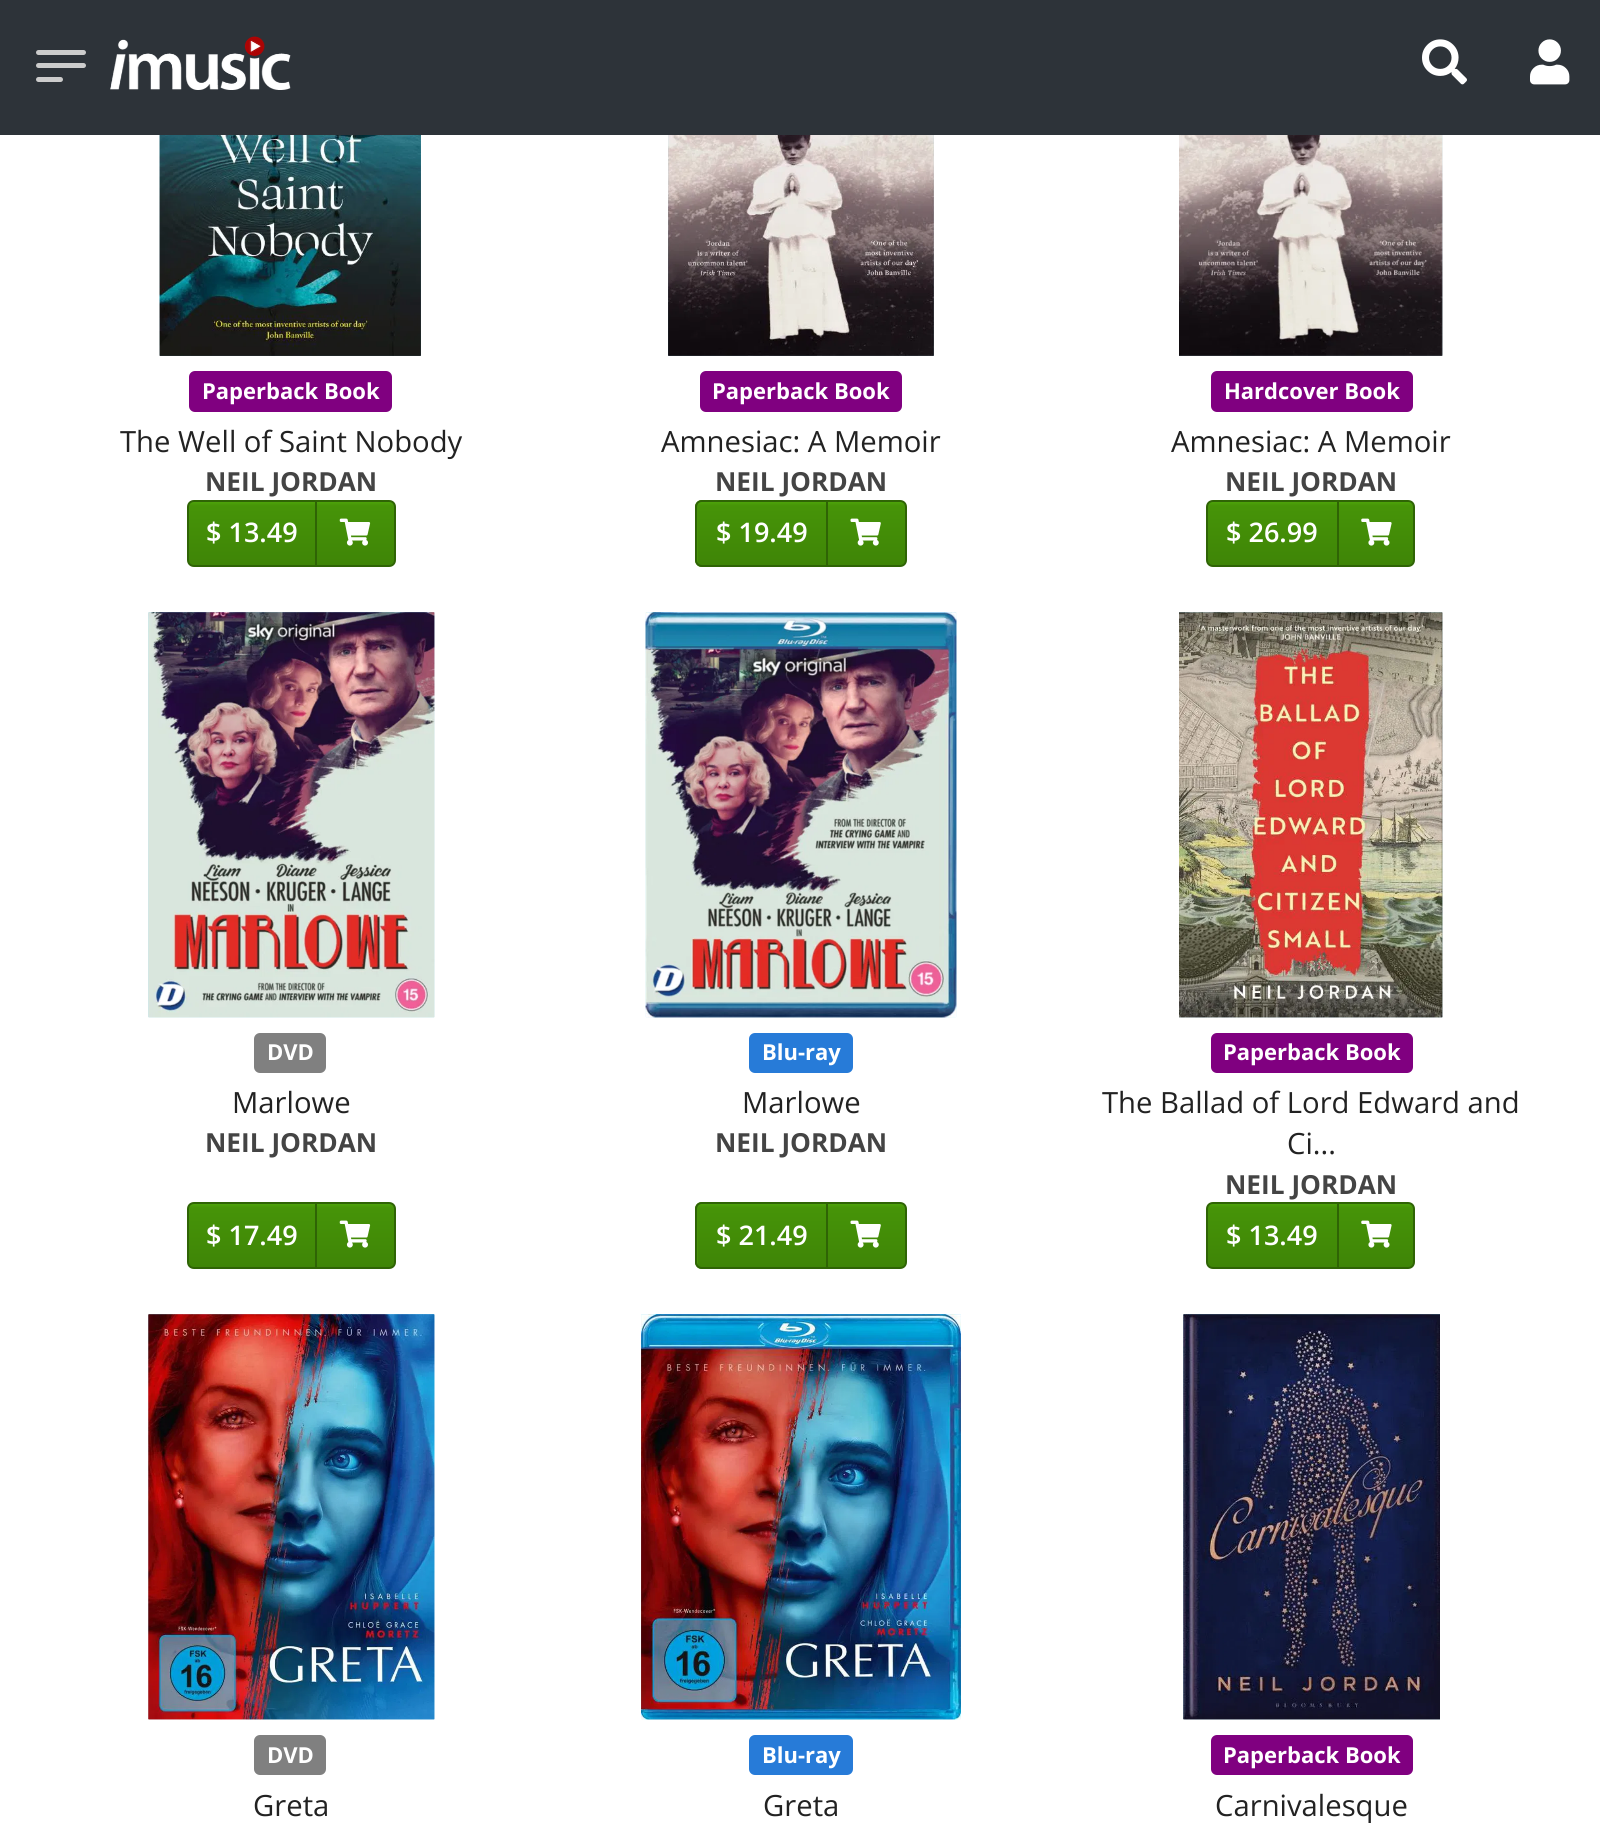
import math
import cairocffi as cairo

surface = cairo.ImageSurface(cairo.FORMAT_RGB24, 1600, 1838)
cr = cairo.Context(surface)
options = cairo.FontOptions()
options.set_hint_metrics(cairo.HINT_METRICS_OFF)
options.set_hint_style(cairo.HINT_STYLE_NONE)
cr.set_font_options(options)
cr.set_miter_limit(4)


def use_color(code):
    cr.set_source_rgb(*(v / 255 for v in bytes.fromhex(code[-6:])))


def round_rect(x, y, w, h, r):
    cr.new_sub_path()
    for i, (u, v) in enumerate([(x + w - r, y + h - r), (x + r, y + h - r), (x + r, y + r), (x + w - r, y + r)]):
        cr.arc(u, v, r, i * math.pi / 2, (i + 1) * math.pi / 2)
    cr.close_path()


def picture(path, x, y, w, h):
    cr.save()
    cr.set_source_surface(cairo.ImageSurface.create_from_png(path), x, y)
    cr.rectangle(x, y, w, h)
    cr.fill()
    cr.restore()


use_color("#ffffff")
cr.paint()
use_color("#2d3339")
cr.rectangle(0, 0, 1600, 135)
cr.fill()
use_color("#cccccc")
round_rect(36, 50, 50, 5, 2.5)
cr.fill()
round_rect(36, 63, 50, 5, 2.5)
cr.fill()
round_rect(36, 77, 27, 5, 2.5)
cr.fill()
picture("img1.png", 110, 36, 181, 54)
picture("img2.png", 1422, 39, 45, 46)
picture("img3.png", 1530, 39, 40, 46)
picture("img4.png", 159, 135, 262, 221)
picture("img5.png", 159, 135, 262, 221)
use_color("#800080")
round_rect(189, 371, 203, 41, 6)
cr.fill()
cr.select_font_face("Open Sans", cairo.FONT_SLANT_NORMAL, cairo.FONT_WEIGHT_BOLD)
cr.set_font_size(22)
use_color("#ffffff")
cr.move_to(202, 399)
cr.show_text("Paperback Book")
cr.select_font_face("Open Sans")
cr.set_font_size(29.25)
use_color("#222222")
cr.move_to(120, 452)
cr.show_text("The Well of Saint Nobody")
cr.select_font_face("Open Sans", cairo.FONT_SLANT_NORMAL, cairo.FONT_WEIGHT_BOLD)
cr.set_font_size(26.25)
use_color("#444444")
cr.move_to(205, 491)
cr.show_text("NEIL JORDAN")
gradient = cairo.LinearGradient(252, 502, 252, 565)
gradient.add_color_stop_rgba(0, 0.302, 0.639, 0.035, 1)
gradient.add_color_stop_rgba(0.06, 0.275, 0.58, 0.031, 1)
gradient.add_color_stop_rgba(1, 0.247, 0.522, 0.027, 1)
cr.set_source(gradient)
cr.rectangle(189, 502, 126, 63)
cr.fill()
cr.new_path()
cr.move_to(194, 501)
cr.line_to(316, 501)
cr.line_to(316, 566)
cr.line_to(194, 566)
cr.curve_to(190.5, 566, 188, 563.5, 188, 560)
cr.line_to(188, 507)
cr.curve_to(188, 503.5, 190.5, 501, 194, 501)
cr.close_path()
use_color("#2f6405")
cr.stroke()
cr.select_font_face("Open Sans SemiBold")
cr.set_font_size(27)
use_color("#ffffff")
cr.move_to(206, 542)
cr.show_text("$ 13.49")
gradient = cairo.LinearGradient(356, 502, 356, 565)
gradient.add_color_stop_rgba(0, 0.302, 0.639, 0.035, 1)
gradient.add_color_stop_rgba(0.06, 0.275, 0.58, 0.031, 1)
gradient.add_color_stop_rgba(1, 0.247, 0.522, 0.027, 1)
cr.set_source(gradient)
cr.rectangle(317, 502, 77, 63)
cr.fill()
cr.new_path()
cr.move_to(316, 501)
cr.line_to(389, 501)
cr.curve_to(392.5, 501, 395, 503.5, 395, 507)
cr.line_to(395, 560)
cr.curve_to(395, 563.5, 392.5, 566, 389, 566)
cr.line_to(316, 566)
cr.close_path()
use_color("#2f6405")
cr.stroke()
picture("img6.png", 339, 518, 32, 28)
picture("img7.png", 668, 135, 266, 221)
picture("img8.png", 668, 135, 266, 221)
use_color("#800080")
round_rect(700, 371, 202, 41, 6)
cr.fill()
cr.select_font_face("Open Sans", cairo.FONT_SLANT_NORMAL, cairo.FONT_WEIGHT_BOLD)
cr.set_font_size(22)
use_color("#ffffff")
cr.move_to(712, 399)
cr.show_text("Paperback Book")
cr.select_font_face("Open Sans")
cr.set_font_size(29.25)
use_color("#222222")
cr.move_to(661, 452)
cr.show_text("Amnesiac: A Memoir")
cr.select_font_face("Open Sans", cairo.FONT_SLANT_NORMAL, cairo.FONT_WEIGHT_BOLD)
cr.set_font_size(26.25)
use_color("#444444")
cr.move_to(715, 491)
cr.show_text("NEIL JORDAN")
use_color("#469408")
cr.new_path()
cr.move_to(702, 500)
cr.line_to(828, 500)
cr.line_to(828, 567)
cr.line_to(702, 567)
cr.curve_to(698, 567, 695, 564, 695, 560)
cr.line_to(695, 507)
cr.curve_to(695, 503, 698, 500, 702, 500)
cr.close_path()
cr.fill()
gradient = cairo.LinearGradient(762, 502, 762, 565)
gradient.add_color_stop_rgba(0, 0.302, 0.639, 0.035, 1)
gradient.add_color_stop_rgba(0.06, 0.275, 0.58, 0.031, 1)
gradient.add_color_stop_rgba(1, 0.247, 0.522, 0.027, 1)
cr.set_source(gradient)
cr.rectangle(698, 502, 128, 63)
cr.fill()
cr.new_path()
cr.move_to(702, 501)
cr.line_to(827, 501)
cr.line_to(827, 566)
cr.line_to(702, 566)
cr.curve_to(698.5, 566, 696, 563.5, 696, 560)
cr.line_to(696, 507)
cr.curve_to(696, 503.5, 698.5, 501, 702, 501)
cr.close_path()
use_color("#2f6405")
cr.stroke()
cr.select_font_face("Open Sans SemiBold")
cr.set_font_size(27)
use_color("#ffffff")
cr.move_to(716, 542)
cr.show_text("$ 19.49")
gradient = cairo.LinearGradient(866, 502, 866, 565)
gradient.add_color_stop_rgba(0, 0.302, 0.639, 0.035, 1)
gradient.add_color_stop_rgba(0.06, 0.275, 0.58, 0.031, 1)
gradient.add_color_stop_rgba(1, 0.247, 0.522, 0.027, 1)
cr.set_source(gradient)
cr.rectangle(828, 502, 77, 63)
cr.fill()
cr.new_path()
cr.move_to(827, 501)
cr.line_to(900, 501)
cr.curve_to(903.5, 501, 906, 503.5, 906, 507)
cr.line_to(906, 560)
cr.curve_to(906, 563.5, 903.5, 566, 900, 566)
cr.line_to(827, 566)
cr.close_path()
use_color("#2f6405")
cr.stroke()
picture("img9.png", 850, 518, 31, 28)
picture("img10.png", 1179, 135, 264, 221)
picture("img11.png", 1179, 135, 264, 221)
use_color("#800080")
round_rect(1211, 371, 202, 41, 6)
cr.fill()
cr.select_font_face("Open Sans", cairo.FONT_SLANT_NORMAL, cairo.FONT_WEIGHT_BOLD)
cr.set_font_size(22)
use_color("#ffffff")
cr.move_to(1224, 399)
cr.show_text("Hardcover Book")
cr.select_font_face("Open Sans")
cr.set_font_size(29.25)
use_color("#222222")
cr.move_to(1171, 452)
cr.show_text("Amnesiac: A Memoir")
cr.select_font_face("Open Sans", cairo.FONT_SLANT_NORMAL, cairo.FONT_WEIGHT_BOLD)
cr.set_font_size(26.25)
use_color("#444444")
cr.move_to(1225, 491)
cr.show_text("NEIL JORDAN")
gradient = cairo.LinearGradient(1272, 502, 1272, 565)
gradient.add_color_stop_rgba(0, 0.302, 0.639, 0.035, 1)
gradient.add_color_stop_rgba(0.06, 0.275, 0.58, 0.031, 1)
gradient.add_color_stop_rgba(1, 0.247, 0.522, 0.027, 1)
cr.set_source(gradient)
cr.rectangle(1208, 502, 129, 63)
cr.fill()
cr.new_path()
cr.move_to(1213, 501)
cr.line_to(1338, 501)
cr.line_to(1338, 566)
cr.line_to(1213, 566)
cr.curve_to(1209.5, 566, 1207, 563.5, 1207, 560)
cr.line_to(1207, 507)
cr.curve_to(1207, 503.5, 1209.5, 501, 1213, 501)
cr.close_path()
use_color("#2f6405")
cr.stroke()
cr.select_font_face("Open Sans SemiBold")
cr.set_font_size(27)
use_color("#ffffff")
cr.move_to(1226, 542)
cr.show_text("$ 26.99")
gradient = cairo.LinearGradient(1376, 502, 1376, 565)
gradient.add_color_stop_rgba(0, 0.302, 0.639, 0.035, 1)
gradient.add_color_stop_rgba(0.06, 0.275, 0.58, 0.031, 1)
gradient.add_color_stop_rgba(1, 0.247, 0.522, 0.027, 1)
cr.set_source(gradient)
cr.rectangle(1339, 502, 74, 63)
cr.fill()
cr.new_path()
cr.move_to(1338, 501)
cr.line_to(1408, 501)
cr.curve_to(1411.5, 501, 1414, 503.5, 1414, 507)
cr.line_to(1414, 560)
cr.curve_to(1414, 563.5, 1411.5, 566, 1408, 566)
cr.line_to(1338, 566)
cr.close_path()
use_color("#2f6405")
cr.stroke()
picture("img12.png", 1361, 518, 31, 28)
picture("img13.png", 148, 612, 287, 406)
picture("img14.png", 148, 612, 287, 406)
use_color("#808080")
round_rect(254, 1033, 72, 40, 6)
cr.fill()
cr.select_font_face("Open Sans", cairo.FONT_SLANT_NORMAL, cairo.FONT_WEIGHT_BOLD)
cr.set_font_size(22)
use_color("#ffffff")
cr.move_to(267, 1060)
cr.show_text("DVD")
cr.select_font_face("Open Sans")
cr.set_font_size(29.25)
use_color("#222222")
cr.move_to(232, 1113)
cr.show_text("Marlowe")
cr.select_font_face("Open Sans", cairo.FONT_SLANT_NORMAL, cairo.FONT_WEIGHT_BOLD)
cr.set_font_size(26.25)
use_color("#444444")
cr.move_to(205, 1152)
cr.show_text("NEIL JORDAN")
gradient = cairo.LinearGradient(252, 1204, 252, 1267)
gradient.add_color_stop_rgba(0, 0.302, 0.639, 0.035, 1)
gradient.add_color_stop_rgba(0.06, 0.275, 0.58, 0.031, 1)
gradient.add_color_stop_rgba(1, 0.247, 0.522, 0.027, 1)
cr.set_source(gradient)
cr.rectangle(189, 1204, 126, 63)
cr.fill()
cr.new_path()
cr.move_to(194, 1203)
cr.line_to(316, 1203)
cr.line_to(316, 1268)
cr.line_to(194, 1268)
cr.curve_to(190.5, 1268, 188, 1265.5, 188, 1262)
cr.line_to(188, 1209)
cr.curve_to(188, 1205.5, 190.5, 1203, 194, 1203)
cr.close_path()
use_color("#2f6405")
cr.stroke()
cr.select_font_face("Open Sans SemiBold")
cr.set_font_size(27)
use_color("#ffffff")
cr.move_to(206, 1245)
cr.show_text("$ 17.49")
gradient = cairo.LinearGradient(356, 1204, 356, 1267)
gradient.add_color_stop_rgba(0, 0.302, 0.639, 0.035, 1)
gradient.add_color_stop_rgba(0.06, 0.275, 0.58, 0.031, 1)
gradient.add_color_stop_rgba(1, 0.247, 0.522, 0.027, 1)
cr.set_source(gradient)
cr.rectangle(317, 1204, 77, 63)
cr.fill()
cr.new_path()
cr.move_to(316, 1203)
cr.line_to(389, 1203)
cr.curve_to(392.5, 1203, 395, 1205.5, 395, 1209)
cr.line_to(395, 1262)
cr.curve_to(395, 1265.5, 392.5, 1268, 389, 1268)
cr.line_to(316, 1268)
cr.close_path()
use_color("#2f6405")
cr.stroke()
picture("img6.png", 339, 1220, 32, 28)
picture("img15.png", 645, 612, 312, 406)
picture("img16.png", 645, 612, 312, 406)
use_color("#277bd8")
round_rect(749, 1033, 104, 40, 6)
cr.fill()
cr.select_font_face("Open Sans", cairo.FONT_SLANT_NORMAL, cairo.FONT_WEIGHT_BOLD)
cr.set_font_size(22)
use_color("#ffffff")
cr.move_to(762, 1060)
cr.show_text("Blu-ray")
cr.select_font_face("Open Sans")
cr.set_font_size(29.25)
use_color("#222222")
cr.move_to(742, 1113)
cr.show_text("Marlowe")
cr.select_font_face("Open Sans", cairo.FONT_SLANT_NORMAL, cairo.FONT_WEIGHT_BOLD)
cr.set_font_size(26.25)
use_color("#444444")
cr.move_to(715, 1152)
cr.show_text("NEIL JORDAN")
use_color("#469408")
cr.new_path()
cr.move_to(702, 1202)
cr.line_to(828, 1202)
cr.line_to(828, 1269)
cr.line_to(702, 1269)
cr.curve_to(698, 1269, 695, 1266, 695, 1262)
cr.line_to(695, 1209)
cr.curve_to(695, 1205, 698, 1202, 702, 1202)
cr.close_path()
cr.fill()
gradient = cairo.LinearGradient(762, 1204, 762, 1267)
gradient.add_color_stop_rgba(0, 0.302, 0.639, 0.035, 1)
gradient.add_color_stop_rgba(0.06, 0.275, 0.58, 0.031, 1)
gradient.add_color_stop_rgba(1, 0.247, 0.522, 0.027, 1)
cr.set_source(gradient)
cr.rectangle(698, 1204, 128, 63)
cr.fill()
cr.new_path()
cr.move_to(702, 1203)
cr.line_to(827, 1203)
cr.line_to(827, 1268)
cr.line_to(702, 1268)
cr.curve_to(698.5, 1268, 696, 1265.5, 696, 1262)
cr.line_to(696, 1209)
cr.curve_to(696, 1205.5, 698.5, 1203, 702, 1203)
cr.close_path()
use_color("#2f6405")
cr.stroke()
cr.select_font_face("Open Sans SemiBold")
cr.set_font_size(27)
use_color("#ffffff")
cr.move_to(716, 1245)
cr.show_text("$ 21.49")
gradient = cairo.LinearGradient(866, 1204, 866, 1267)
gradient.add_color_stop_rgba(0, 0.302, 0.639, 0.035, 1)
gradient.add_color_stop_rgba(0.06, 0.275, 0.58, 0.031, 1)
gradient.add_color_stop_rgba(1, 0.247, 0.522, 0.027, 1)
cr.set_source(gradient)
cr.rectangle(828, 1204, 77, 63)
cr.fill()
cr.new_path()
cr.move_to(827, 1203)
cr.line_to(900, 1203)
cr.curve_to(903.5, 1203, 906, 1205.5, 906, 1209)
cr.line_to(906, 1262)
cr.curve_to(906, 1265.5, 903.5, 1268, 900, 1268)
cr.line_to(827, 1268)
cr.close_path()
use_color("#2f6405")
cr.stroke()
picture("img9.png", 850, 1220, 31, 28)
picture("img17.png", 1179, 612, 264, 406)
picture("img18.png", 1179, 612, 264, 406)
use_color("#800080")
round_rect(1211, 1033, 202, 40, 6)
cr.fill()
cr.select_font_face("Open Sans", cairo.FONT_SLANT_NORMAL, cairo.FONT_WEIGHT_BOLD)
cr.set_font_size(22)
use_color("#ffffff")
cr.move_to(1223, 1060)
cr.show_text("Paperback Book")
cr.select_font_face("Open Sans")
cr.set_font_size(29.25)
use_color("#222222")
cr.move_to(1102, 1113)
cr.show_text("The Ballad of Lord Edward and")
cr.move_to(1287, 1154)
cr.show_text("Ci...")
cr.select_font_face("Open Sans", cairo.FONT_SLANT_NORMAL, cairo.FONT_WEIGHT_BOLD)
cr.set_font_size(26.25)
use_color("#444444")
cr.move_to(1225, 1194)
cr.show_text("NEIL JORDAN")
gradient = cairo.LinearGradient(1272, 1204, 1272, 1267)
gradient.add_color_stop_rgba(0, 0.302, 0.639, 0.035, 1)
gradient.add_color_stop_rgba(0.06, 0.275, 0.58, 0.031, 1)
gradient.add_color_stop_rgba(1, 0.247, 0.522, 0.027, 1)
cr.set_source(gradient)
cr.rectangle(1208, 1204, 129, 63)
cr.fill()
cr.new_path()
cr.move_to(1213, 1203)
cr.line_to(1338, 1203)
cr.line_to(1338, 1268)
cr.line_to(1213, 1268)
cr.curve_to(1209.5, 1268, 1207, 1265.5, 1207, 1262)
cr.line_to(1207, 1209)
cr.curve_to(1207, 1205.5, 1209.5, 1203, 1213, 1203)
cr.close_path()
use_color("#2f6405")
cr.stroke()
cr.select_font_face("Open Sans SemiBold")
cr.set_font_size(27)
use_color("#ffffff")
cr.move_to(1226, 1245)
cr.show_text("$ 13.49")
gradient = cairo.LinearGradient(1376, 1204, 1376, 1267)
gradient.add_color_stop_rgba(0, 0.302, 0.639, 0.035, 1)
gradient.add_color_stop_rgba(0.06, 0.275, 0.58, 0.031, 1)
gradient.add_color_stop_rgba(1, 0.247, 0.522, 0.027, 1)
cr.set_source(gradient)
cr.rectangle(1339, 1204, 74, 63)
cr.fill()
cr.new_path()
cr.move_to(1338, 1203)
cr.line_to(1408, 1203)
cr.curve_to(1411.5, 1203, 1414, 1205.5, 1414, 1209)
cr.line_to(1414, 1262)
cr.curve_to(1414, 1265.5, 1411.5, 1268, 1408, 1268)
cr.line_to(1338, 1268)
cr.close_path()
use_color("#2f6405")
cr.stroke()
picture("img12.png", 1361, 1220, 31, 28)
picture("img19.png", 148, 1314, 287, 406)
picture("img20.png", 148, 1314, 287, 406)
use_color("#808080")
round_rect(254, 1735, 72, 40, 6)
cr.fill()
cr.select_font_face("Open Sans", cairo.FONT_SLANT_NORMAL, cairo.FONT_WEIGHT_BOLD)
cr.set_font_size(22)
use_color("#ffffff")
cr.move_to(267, 1763)
cr.show_text("DVD")
cr.select_font_face("Open Sans")
cr.set_font_size(29.25)
use_color("#222222")
cr.move_to(253, 1816)
cr.show_text("Greta")
picture("img21.png", 641, 1314, 320, 406)
picture("img22.png", 641, 1314, 320, 406)
use_color("#277bd8")
round_rect(749, 1735, 104, 40, 6)
cr.fill()
cr.select_font_face("Open Sans", cairo.FONT_SLANT_NORMAL, cairo.FONT_WEIGHT_BOLD)
cr.set_font_size(22)
use_color("#ffffff")
cr.move_to(762, 1763)
cr.show_text("Blu-ray")
cr.select_font_face("Open Sans")
cr.set_font_size(29.25)
use_color("#222222")
cr.move_to(763, 1816)
cr.show_text("Greta")
picture("img23.png", 1183, 1314, 257, 406)
picture("img24.png", 1183, 1314, 257, 406)
use_color("#800080")
round_rect(1211, 1735, 202, 40, 6)
cr.fill()
cr.select_font_face("Open Sans", cairo.FONT_SLANT_NORMAL, cairo.FONT_WEIGHT_BOLD)
cr.set_font_size(22)
use_color("#ffffff")
cr.move_to(1223, 1763)
cr.show_text("Paperback Book")
cr.select_font_face("Open Sans")
cr.set_font_size(29.25)
use_color("#222222")
cr.move_to(1215, 1816)
cr.show_text("Carnivalesque")
surface.write_to_png("result.png")
